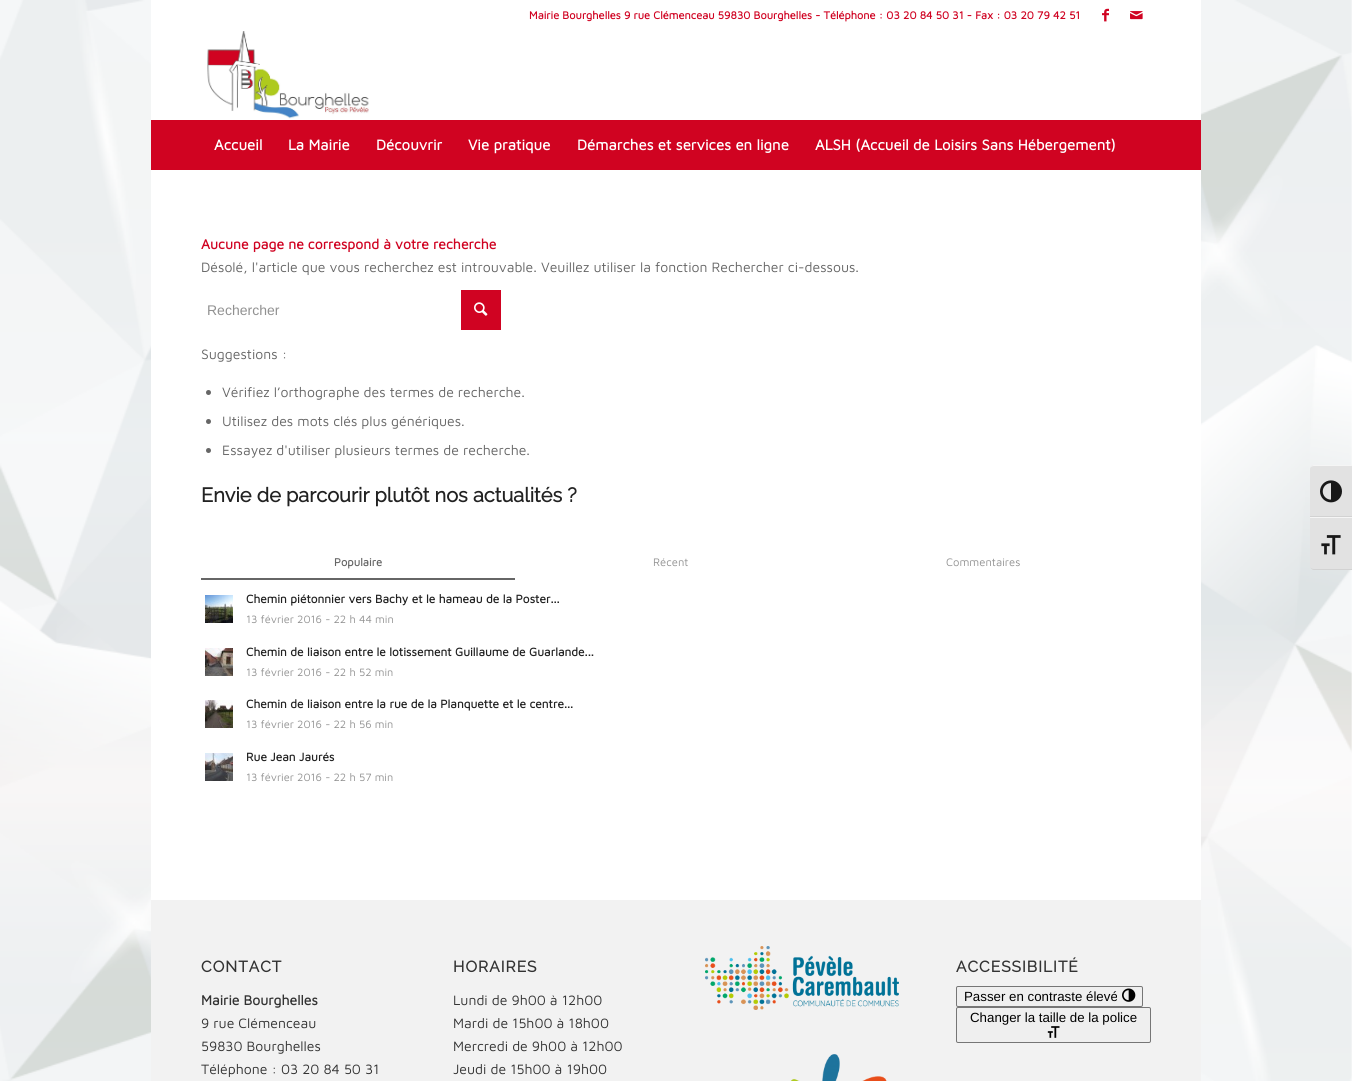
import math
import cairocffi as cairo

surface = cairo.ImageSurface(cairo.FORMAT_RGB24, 1352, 1081)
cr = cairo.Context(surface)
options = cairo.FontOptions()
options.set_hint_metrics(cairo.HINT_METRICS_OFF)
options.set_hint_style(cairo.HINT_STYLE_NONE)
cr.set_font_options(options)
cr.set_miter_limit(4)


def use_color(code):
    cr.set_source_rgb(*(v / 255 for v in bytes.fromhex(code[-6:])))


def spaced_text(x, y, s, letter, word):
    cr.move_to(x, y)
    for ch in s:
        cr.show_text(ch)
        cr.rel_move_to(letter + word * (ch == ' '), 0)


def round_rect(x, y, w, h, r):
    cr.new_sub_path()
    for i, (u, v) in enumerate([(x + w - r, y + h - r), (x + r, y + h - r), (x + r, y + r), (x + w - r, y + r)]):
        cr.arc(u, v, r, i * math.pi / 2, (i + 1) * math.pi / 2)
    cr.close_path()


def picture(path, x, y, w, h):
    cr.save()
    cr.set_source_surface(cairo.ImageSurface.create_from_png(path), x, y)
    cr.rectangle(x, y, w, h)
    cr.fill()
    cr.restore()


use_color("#ffffff")
cr.paint()
picture("img1.png", 0, 0, 1352, 1081)
use_color("#ffffff")
cr.rectangle(151, 0, 1050, 120)
cr.fill()
cr.select_font_face("Maven Pro", cairo.FONT_SLANT_NORMAL, cairo.FONT_WEIGHT_BOLD)
cr.set_font_size(11)
use_color("#d00322")
cr.move_to(529, 19)
cr.show_text("Mairie Bourghelles 9 rue Clémenceau 59830 Bourghelles - Téléphone : 03 20 84 50 31 - Fax : 03 20 79 42 51")
picture("img2.png", 1102, 8, 7, 14)
picture("img3.png", 1130, 11, 13, 9)
picture("img4.png", 207, 31, 162, 88)
use_color("#d00321")
cr.rectangle(151, 120, 1050, 50)
cr.fill()
cr.set_font_size(15)
use_color("#ffffff")
cr.move_to(214, 150)
cr.show_text("Accueil")
cr.move_to(288, 150)
cr.show_text("La Mairie")
cr.move_to(376, 150)
cr.show_text("Découvrir")
cr.move_to(468, 150)
cr.show_text("Vie pratique")
cr.move_to(577, 150)
cr.show_text("Démarches et services en ligne")
cr.move_to(815, 150)
cr.show_text("ALSH (Accueil de Loisirs Sans Hébergement)")
cr.rectangle(151, 170, 1050, 730)
cr.fill()
cr.set_font_size(14)
use_color("#d00322")
cr.move_to(201, 249)
cr.show_text("Aucune page ne correspond à votre recherche")
cr.select_font_face("Maven Pro")
use_color("#666666")
cr.move_to(201, 272)
cr.show_text("Désolé, l'article que vous recherchez est introuvable. Veuillez utiliser la fonction Rechercher ci-dessous.")
cr.select_font_face("Liberation Sans")
use_color("#919191")
cr.move_to(207, 315)
cr.show_text("Rechercher")
use_color("#d00322")
cr.rectangle(461, 290, 40, 40)
cr.fill()
picture("img5.png", 474, 302, 14, 14)
cr.select_font_face("Maven Pro")
use_color("#666666")
cr.move_to(201, 359)
cr.show_text("Suggestions :")
cr.new_path()
cr.arc(208.5, 392.5, 2.5, 0, 2 * math.pi)
cr.fill()
cr.move_to(222, 397)
cr.show_text("Vérifiez l’orthographe des termes de recherche.")
cr.new_path()
cr.arc(208.5, 421.5, 2.5, 0, 2 * math.pi)
cr.fill()
cr.move_to(222, 426)
cr.show_text("Utilisez des mots clés plus génériques.")
cr.new_path()
cr.arc(208.5, 450.5, 2.5, 0, 2 * math.pi)
cr.fill()
cr.move_to(222, 455)
cr.show_text("Essayez d'utiliser plusieurs termes de recherche.")
cr.select_font_face("Raleway", cairo.FONT_SLANT_NORMAL, cairo.FONT_WEIGHT_BOLD)
cr.set_font_size(20)
use_color("#222222")
cr.move_to(201, 502)
cr.show_text("Envie de parcourir plutôt nos actualités ?")
use_color("#666666")
cr.rectangle(201, 578, 314, 2)
cr.fill()
cr.select_font_face("Maven Pro", cairo.FONT_SLANT_NORMAL, cairo.FONT_WEIGHT_BOLD)
cr.set_font_size(11.25)
cr.move_to(334, 566)
cr.show_text("Populaire")
cr.select_font_face("Maven Pro")
use_color("#919191")
cr.move_to(653, 566)
cr.show_text("Récent")
cr.move_to(946, 566)
cr.show_text("Commentaires")
picture("img6.png", 205, 595, 28, 28)
cr.select_font_face("Maven Pro", cairo.FONT_SLANT_NORMAL, cairo.FONT_WEIGHT_BOLD)
cr.set_font_size(11.9)
use_color("#222222")
cr.move_to(246, 603)
cr.show_text("Chemin piétonnier vers Bachy et le hameau de la Poster...")
cr.select_font_face("Maven Pro")
cr.set_font_size(11)
use_color("#919191")
cr.move_to(246, 623)
cr.show_text("13 février 2016 - 22 h 44 min")
picture("img7.png", 205, 648, 28, 28)
cr.select_font_face("Maven Pro", cairo.FONT_SLANT_NORMAL, cairo.FONT_WEIGHT_BOLD)
cr.set_font_size(11.9)
use_color("#222222")
cr.move_to(246, 656)
cr.show_text("Chemin de liaison entre le lotissement Guillaume de Guarlande...")
cr.select_font_face("Maven Pro")
cr.set_font_size(11)
use_color("#919191")
cr.move_to(246, 676)
cr.show_text("13 février 2016 - 22 h 52 min")
picture("img8.png", 205, 700, 28, 28)
cr.select_font_face("Maven Pro", cairo.FONT_SLANT_NORMAL, cairo.FONT_WEIGHT_BOLD)
cr.set_font_size(11.9)
use_color("#222222")
cr.move_to(246, 708)
cr.show_text("Chemin de liaison entre la rue de la Planquette et le centre...")
cr.select_font_face("Maven Pro")
cr.set_font_size(11)
use_color("#919191")
cr.move_to(246, 728)
cr.show_text("13 février 2016 - 22 h 56 min")
picture("img9.png", 205, 753, 28, 28)
cr.select_font_face("Maven Pro", cairo.FONT_SLANT_NORMAL, cairo.FONT_WEIGHT_BOLD)
cr.set_font_size(11.9)
use_color("#222222")
cr.move_to(246, 761)
cr.show_text("Rue Jean Jaurés")
cr.select_font_face("Maven Pro")
cr.set_font_size(11)
use_color("#919191")
cr.move_to(246, 781)
cr.show_text("13 février 2016 - 22 h 57 min")
use_color("#f2f2f2")
cr.rectangle(151, 900, 1050, 181)
cr.fill()
cr.select_font_face("Raleway", cairo.FONT_SLANT_NORMAL, cairo.FONT_WEIGHT_BOLD)
cr.set_font_size(15.5)
use_color("#333333")
spaced_text(201, 972, "CONTACT", 1, 0)
cr.select_font_face("Maven Pro", cairo.FONT_SLANT_NORMAL, cairo.FONT_WEIGHT_BOLD)
cr.set_font_size(14)
cr.move_to(201, 1005)
cr.show_text("Mairie Bourghelles")
cr.select_font_face("Maven Pro")
cr.move_to(201, 1028)
cr.show_text("9 rue Clémenceau")
cr.move_to(201, 1051)
cr.show_text("59830 Bourghelles")
cr.move_to(201, 1074)
cr.show_text("Téléphone : 03 20 84 50 31")
cr.select_font_face("Raleway", cairo.FONT_SLANT_NORMAL, cairo.FONT_WEIGHT_BOLD)
cr.set_font_size(15.5)
spaced_text(453, 972, "HORAIRES", 1, 0)
cr.select_font_face("Maven Pro")
cr.set_font_size(14)
cr.move_to(453, 1005)
cr.show_text("Lundi de 9h00 à 12h00")
cr.move_to(453, 1028)
cr.show_text("Mardi de 15h00 à 18h00")
cr.move_to(453, 1051)
cr.show_text("Mercredi de 9h00 à 12h00")
cr.move_to(453, 1074)
cr.show_text("Jeudi de 15h00 à 19h00")
picture("img10.png", 705, 946, 194, 64)
picture("img11.png", 790, 1054, 97, 27)
cr.select_font_face("Raleway", cairo.FONT_SLANT_NORMAL, cairo.FONT_WEIGHT_BOLD)
cr.set_font_size(15.5)
spaced_text(956, 972, "ACCESSIBILITÉ", 1, 0)
use_color("#efefef")
round_rect(956.5, 986.5, 186, 20, 1.5)
cr.fill_preserve()
use_color("#767676")
cr.set_line_width(1)
cr.stroke()
cr.select_font_face("Liberation Sans")
cr.set_font_size(13.3)
use_color("#000000")
cr.move_to(964, 1001)
cr.show_text("Passer en contraste élevé")
picture("img12.png", 1122, 988, 14, 14)
use_color("#efefef")
round_rect(956.5, 1007.5, 194, 35, 1.5)
cr.fill_preserve()
use_color("#767676")
cr.stroke()
use_color("#000000")
cr.move_to(970, 1022)
cr.show_text("Changer la taille de la police")
picture("img13.png", 1047, 1026, 13, 12)
use_color("#e2e2e2")
cr.new_path()
cr.move_to(1314, 465)
cr.line_to(1352, 465)
cr.line_to(1352, 517)
cr.line_to(1310, 517)
cr.line_to(1310, 469)
cr.curve_to(1310, 467, 1312, 465, 1314, 465)
cr.close_path()
cr.fill()
use_color("#f5f5f5")
cr.new_path()
cr.move_to(1314, 466)
cr.line_to(1352, 466)
cr.line_to(1352, 465)
cr.line_to(1314, 465)
cr.curve_to(1312, 465, 1310, 467, 1310, 469)
cr.curve_to(1310, 467, 1312, 466, 1314, 466)
cr.close_path()
cr.fill()
use_color("#d2d2d2")
cr.rectangle(1310, 516, 42, 1)
cr.fill()
picture("img14.png", 1320, 480, 22, 23)
use_color("#e2e2e2")
cr.new_path()
cr.move_to(1310, 517)
cr.line_to(1352, 517)
cr.line_to(1352, 570)
cr.line_to(1314, 570)
cr.curve_to(1312, 570, 1310, 568, 1310, 566)
cr.close_path()
cr.fill()
use_color("#f5f5f5")
cr.rectangle(1310, 517, 42, 1)
cr.fill()
use_color("#d2d2d2")
cr.new_path()
cr.move_to(1352, 570)
cr.line_to(1352, 569)
cr.line_to(1314, 569)
cr.curve_to(1312, 569, 1310, 568, 1310, 566)
cr.curve_to(1310, 568, 1312, 570, 1314, 570)
cr.close_path()
cr.fill()
picture("img15.png", 1321, 535, 20, 20)
surface.write_to_png("result.png")
